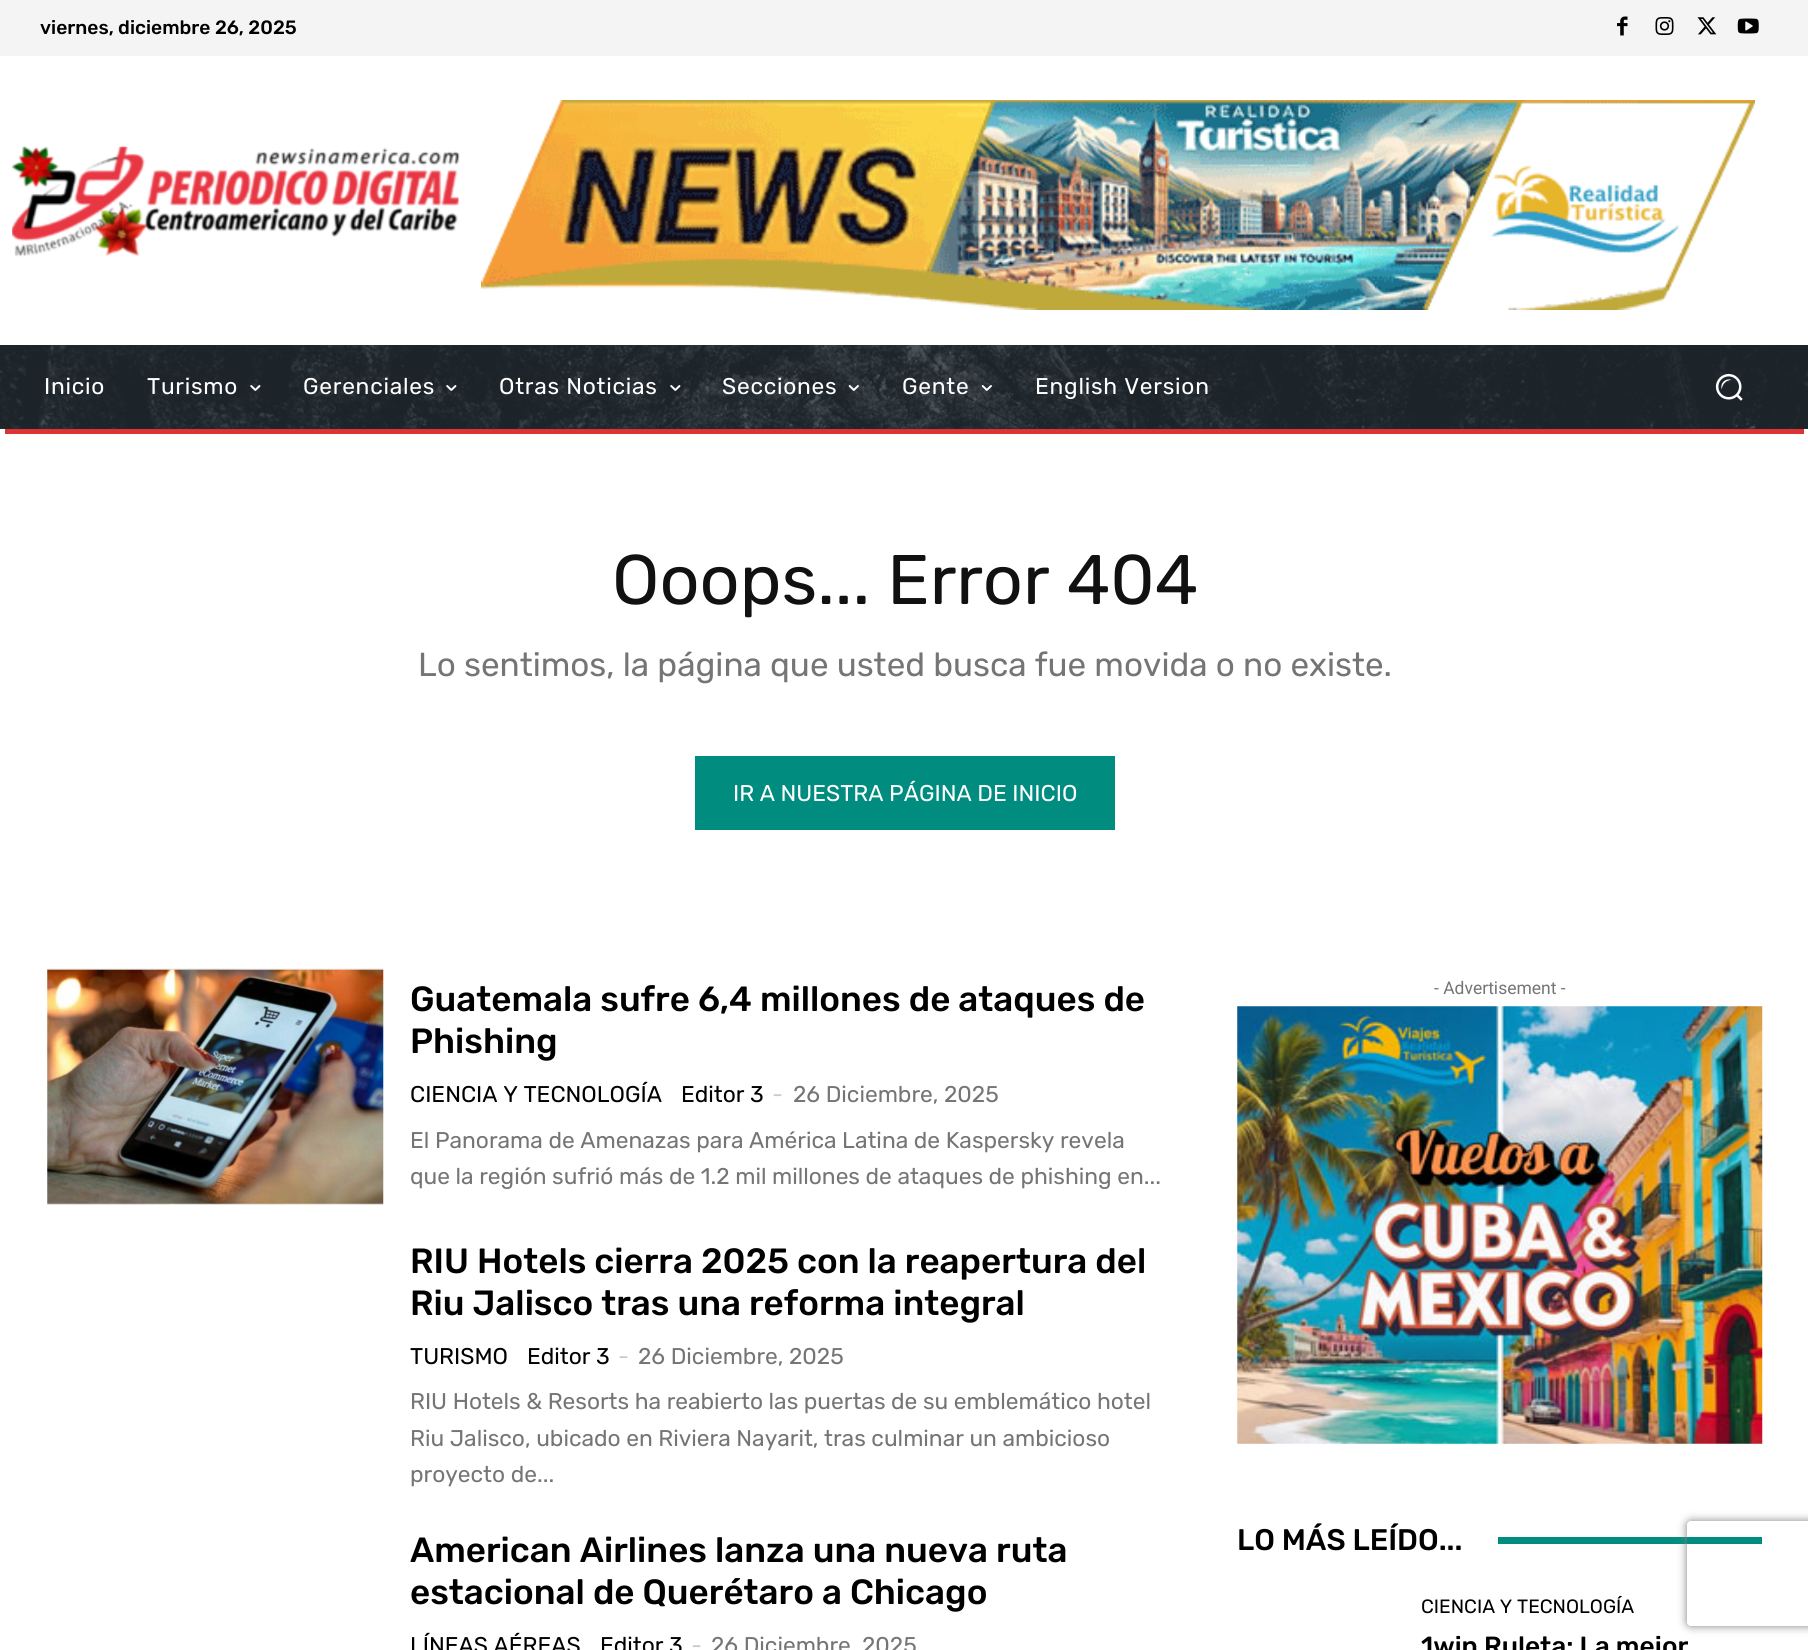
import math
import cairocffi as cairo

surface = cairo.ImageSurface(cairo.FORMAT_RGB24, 1808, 1650)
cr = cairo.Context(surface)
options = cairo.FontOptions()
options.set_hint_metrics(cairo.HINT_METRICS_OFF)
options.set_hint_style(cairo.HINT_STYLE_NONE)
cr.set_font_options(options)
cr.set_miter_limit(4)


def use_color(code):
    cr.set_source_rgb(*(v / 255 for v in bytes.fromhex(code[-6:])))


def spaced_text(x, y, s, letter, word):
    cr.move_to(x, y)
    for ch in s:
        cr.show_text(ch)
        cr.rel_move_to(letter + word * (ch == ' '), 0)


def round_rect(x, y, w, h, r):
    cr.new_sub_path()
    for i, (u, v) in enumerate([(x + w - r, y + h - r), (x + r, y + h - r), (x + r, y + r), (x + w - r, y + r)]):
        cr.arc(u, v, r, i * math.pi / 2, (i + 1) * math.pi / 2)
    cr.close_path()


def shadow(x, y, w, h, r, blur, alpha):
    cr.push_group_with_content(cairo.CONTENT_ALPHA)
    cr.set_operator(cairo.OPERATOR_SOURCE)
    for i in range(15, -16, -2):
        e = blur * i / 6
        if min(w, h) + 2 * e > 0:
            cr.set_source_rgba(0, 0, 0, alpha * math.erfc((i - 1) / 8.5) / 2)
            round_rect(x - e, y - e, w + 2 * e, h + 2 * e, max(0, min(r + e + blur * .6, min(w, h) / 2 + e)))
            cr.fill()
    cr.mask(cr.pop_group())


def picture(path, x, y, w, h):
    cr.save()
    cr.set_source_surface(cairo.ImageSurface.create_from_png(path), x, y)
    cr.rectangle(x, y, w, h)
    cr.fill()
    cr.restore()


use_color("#ffffff")
cr.paint()
use_color("#f4f4f4")
cr.rectangle(0, 0, 1808, 56)
cr.fill()
cr.select_font_face("Rubik Medium")
cr.set_font_size(19.25)
use_color("#000000")
cr.move_to(40, 34)
cr.show_text("viernes, diciembre 26, 2025")
picture("img1.png", 1617, 16, 11, 20)
picture("img2.png", 1655, 17, 19, 18)
picture("img3.png", 1697, 17, 20, 18)
picture("img4.png", 1737, 18, 22, 16)
picture("img5.png", 12, 146, 448, 111)
picture("img6.png", 481, 100, 1274, 210)
use_color("#232d35")
cr.rectangle(0, 345, 1808, 84)
cr.fill()
picture("img7.png", 0, 345, 1808, 84)
cr.select_font_face("Rubik")
cr.set_font_size(22.75)
use_color("#ffffff")
spaced_text(44, 394, "Inicio", 0.75, 0)
spaced_text(147, 394, "Turismo", 0.75, 0)
picture("img8.png", 250, 385, 11, 6)
spaced_text(303, 394, "Gerenciales", 0.75, 0)
picture("img9.png", 446, 385, 11, 6)
spaced_text(499, 394, "Otras Noticias", 0.75, 0)
picture("img10.png", 670, 385, 11, 6)
spaced_text(722, 394, "Secciones", 0.75, 0)
picture("img11.png", 848, 385, 11, 6)
spaced_text(902, 394, "Gente", 0.75, 0)
picture("img12.png", 981, 385, 11, 6)
spaced_text(1035, 394, "English Version", 0.75, 0)
picture("img13.png", 1715, 373, 28, 28)
use_color("#dd3333")
cr.rectangle(5, 429, 1799, 5)
cr.fill()
cr.set_font_size(70)
use_color("#111111")
cr.move_to(612, 604)
cr.show_text("Ooops... Error 404")
cr.set_font_size(33.25)
use_color("#757575")
cr.move_to(418, 676)
cr.show_text("Lo sentimos, la página que usted busca fue movida o no existe.")
use_color("#008d7f")
cr.rectangle(695, 756, 420, 74)
cr.fill()
cr.set_font_size(22.75)
use_color("#ffffff")
cr.move_to(733, 801)
cr.show_text("IR A NUESTRA PÁGINA DE INICIO")
picture("img14.png", 47, 968, 337, 237)
cr.select_font_face("Rubik Medium")
cr.set_font_size(35)
use_color("#000000")
cr.move_to(410, 1011)
cr.show_text("Guatemala sufre 6,4 millones de ataques de")
cr.move_to(410, 1053)
cr.show_text("Phishing")
cr.select_font_face("Rubik")
cr.set_font_size(22.75)
cr.move_to(410, 1102)
cr.show_text("CIENCIA Y TECNOLOGÍA")
cr.move_to(681, 1102)
cr.show_text("Editor 3")
use_color("#cccccc")
cr.move_to(772, 1102)
cr.show_text("-")
use_color("#757575")
cr.move_to(793, 1102)
cr.show_text("26 Diciembre, 2025")
cr.move_to(410, 1148)
cr.show_text("El Panorama de Amenazas para América Latina de Kaspersky revela")
cr.move_to(410, 1184)
cr.show_text("que la región sufrió más de 1.2 mil millones de ataques de phishing en...")
cr.select_font_face("Rubik Medium")
cr.set_font_size(35)
use_color("#000000")
cr.move_to(410, 1273)
cr.show_text("RIU Hotels cierra 2025 con la reapertura del")
cr.move_to(410, 1315)
cr.show_text("Riu Jalisco tras una reforma integral")
cr.select_font_face("Rubik")
cr.set_font_size(22.75)
cr.move_to(410, 1364)
cr.show_text("TURISMO")
cr.move_to(527, 1364)
cr.show_text("Editor 3")
use_color("#cccccc")
cr.move_to(618, 1364)
cr.show_text("-")
use_color("#757575")
cr.move_to(638, 1364)
cr.show_text("26 Diciembre, 2025")
cr.move_to(410, 1409)
cr.show_text("RIU Hotels & Resorts ha reabierto las puertas de su emblemático hotel")
cr.move_to(410, 1446)
cr.show_text("Riu Jalisco, ubicado en Riviera Nayarit, tras culminar un ambicioso")
cr.move_to(410, 1482)
cr.show_text("proyecto de...")
cr.select_font_face("Rubik Medium")
cr.set_font_size(35)
use_color("#000000")
cr.move_to(410, 1562)
cr.show_text("American Airlines lanza una nueva ruta")
cr.move_to(410, 1604)
cr.show_text("estacional de Querétaro a Chicago")
cr.select_font_face("Rubik")
cr.set_font_size(22.75)
cr.move_to(410, 1653)
cr.show_text("LÍNEAS AÉREAS")
cr.move_to(600, 1653)
cr.show_text("Editor 3")
use_color("#cccccc")
cr.move_to(691, 1653)
cr.show_text("-")
use_color("#757575")
cr.move_to(711, 1653)
cr.show_text("26 Diciembre, 2025")
cr.select_font_face("Roboto")
cr.set_font_size(17.5)
cr.move_to(1434, 994)
cr.show_text("- Advertisement -")
picture("img15.png", 1237, 1006, 526, 438)
cr.select_font_face("Rubik Medium")
cr.set_font_size(29.75)
use_color("#000000")
cr.move_to(1237, 1550)
cr.show_text("LO MÁS LEÍDO...")
use_color("#008d7f")
cr.rectangle(1498, 1537, 264, 7)
cr.fill()
cr.select_font_face("Rubik")
cr.set_font_size(19.25)
use_color("#000000")
cr.move_to(1421, 1613)
cr.show_text("CIENCIA Y TECNOLOGÍA")
cr.select_font_face("Rubik Medium")
cr.set_font_size(26.25)
cr.move_to(1421, 1655)
cr.show_text("1win Ruleta: La mejor")
cr.save()
cr.set_fill_rule(cairo.FILL_RULE_EVEN_ODD)
cr.new_path()
cr.move_to(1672, 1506)
cr.line_to(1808, 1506)
cr.line_to(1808, 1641)
cr.line_to(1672, 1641)
cr.close_path()
cr.move_to(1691, 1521)
cr.line_to(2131, 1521)
cr.curve_to(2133, 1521, 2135, 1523, 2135, 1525)
cr.line_to(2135, 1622)
cr.curve_to(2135, 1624, 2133, 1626, 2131, 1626)
cr.line_to(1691, 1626)
cr.curve_to(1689, 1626, 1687, 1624, 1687, 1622)
cr.line_to(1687, 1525)
cr.curve_to(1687, 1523, 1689, 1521, 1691, 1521)
cr.close_path()
cr.clip()
use_color("#808080")
shadow(1687, 1521, 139, 105, 4, 4.5, 1)
cr.restore()
surface.write_to_png("result.png")
